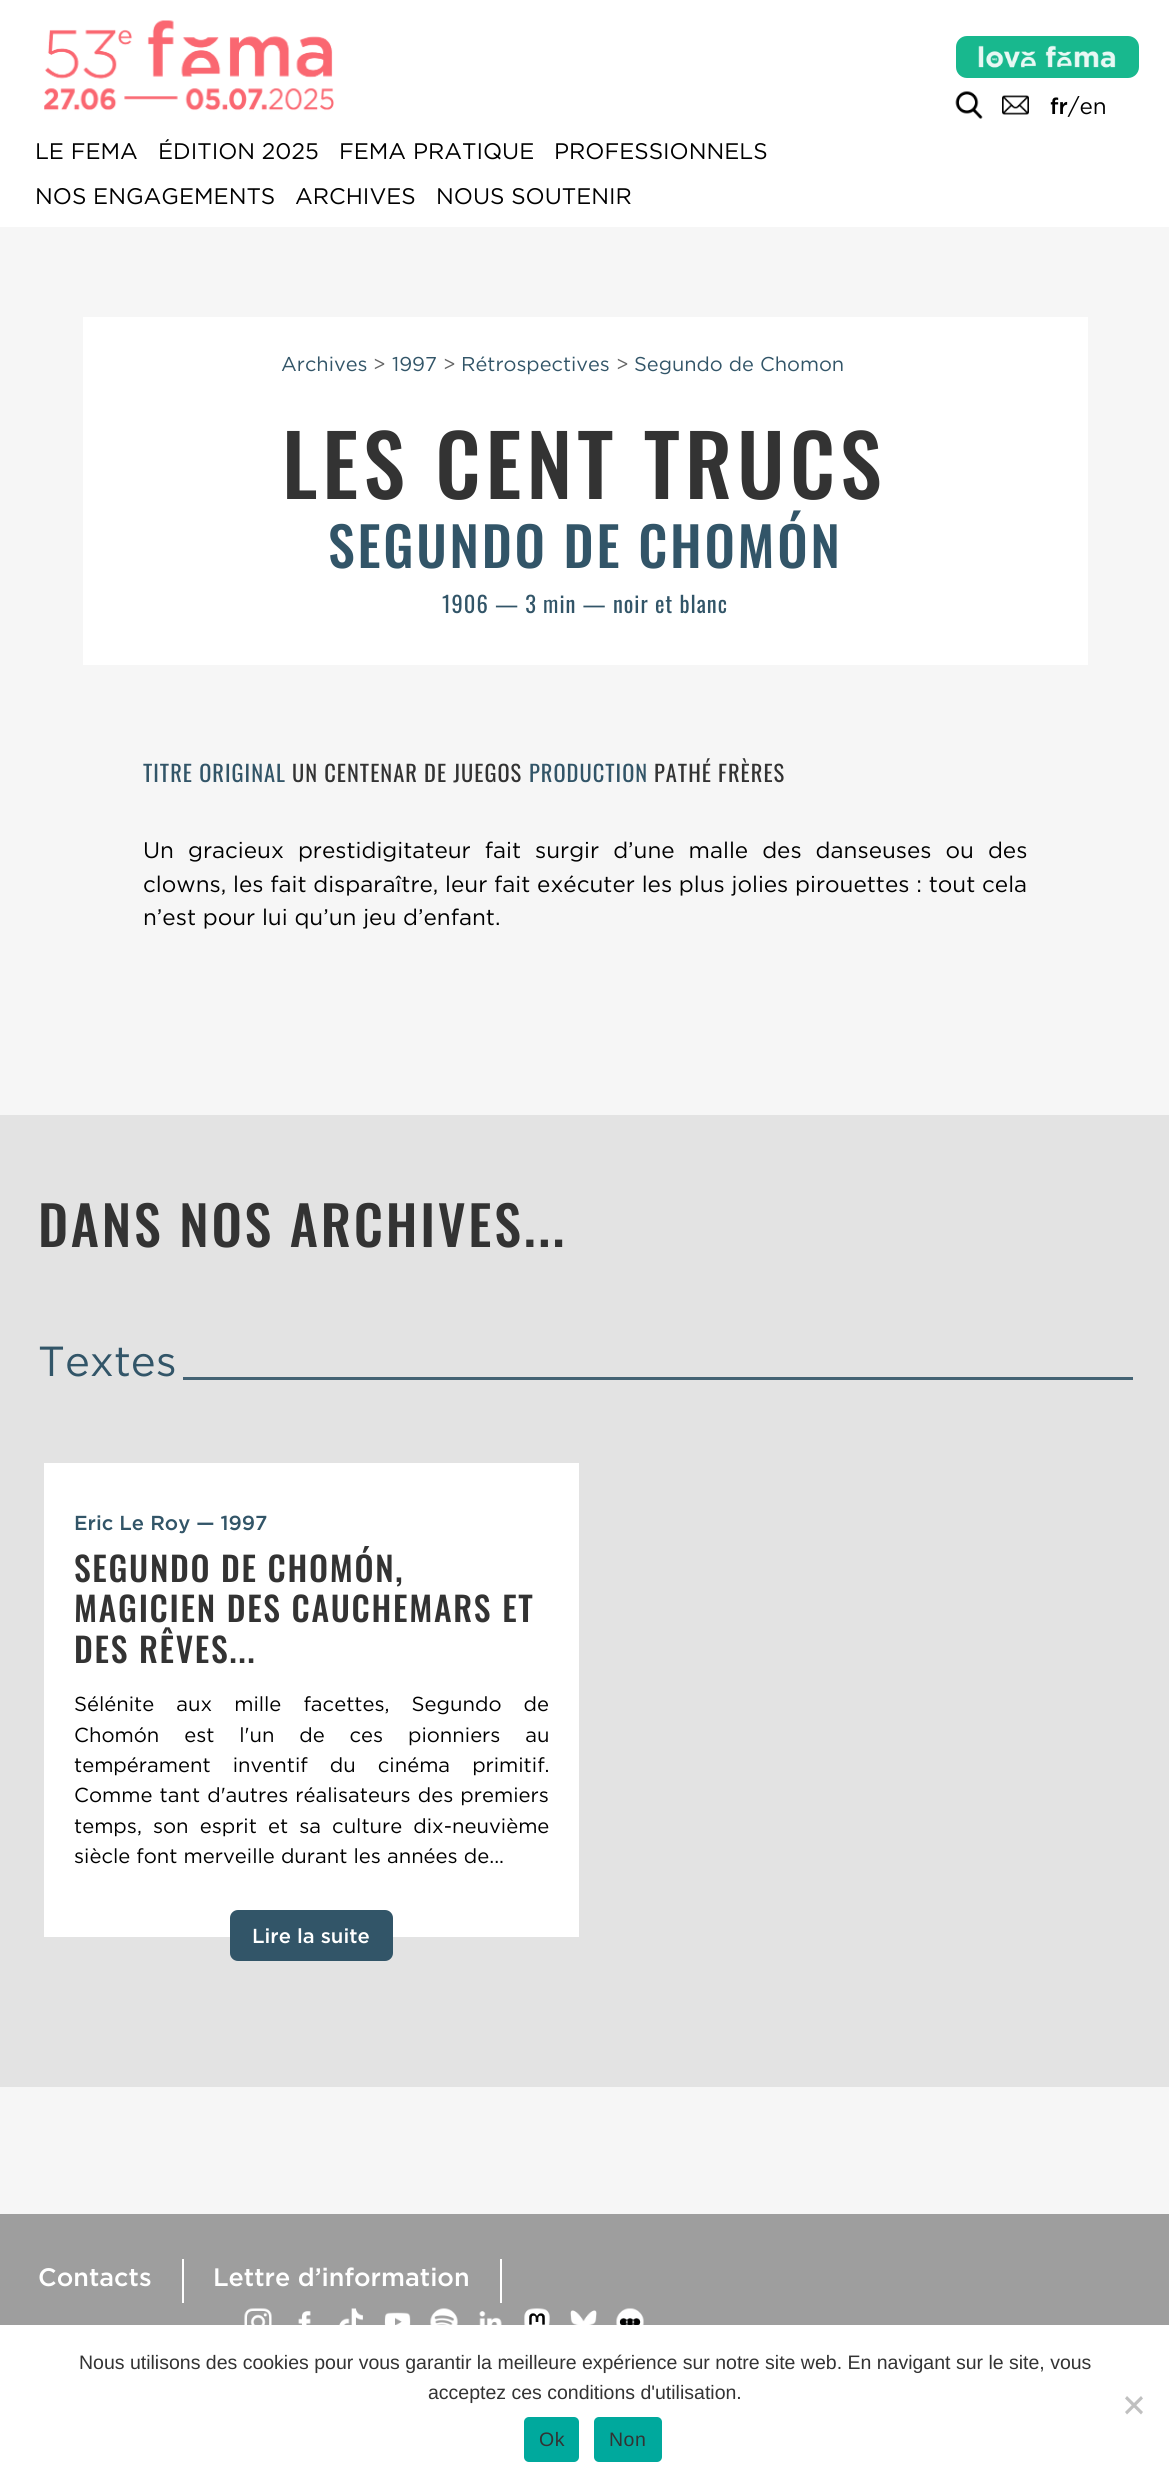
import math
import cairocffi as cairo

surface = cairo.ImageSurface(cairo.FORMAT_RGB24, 1169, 2484)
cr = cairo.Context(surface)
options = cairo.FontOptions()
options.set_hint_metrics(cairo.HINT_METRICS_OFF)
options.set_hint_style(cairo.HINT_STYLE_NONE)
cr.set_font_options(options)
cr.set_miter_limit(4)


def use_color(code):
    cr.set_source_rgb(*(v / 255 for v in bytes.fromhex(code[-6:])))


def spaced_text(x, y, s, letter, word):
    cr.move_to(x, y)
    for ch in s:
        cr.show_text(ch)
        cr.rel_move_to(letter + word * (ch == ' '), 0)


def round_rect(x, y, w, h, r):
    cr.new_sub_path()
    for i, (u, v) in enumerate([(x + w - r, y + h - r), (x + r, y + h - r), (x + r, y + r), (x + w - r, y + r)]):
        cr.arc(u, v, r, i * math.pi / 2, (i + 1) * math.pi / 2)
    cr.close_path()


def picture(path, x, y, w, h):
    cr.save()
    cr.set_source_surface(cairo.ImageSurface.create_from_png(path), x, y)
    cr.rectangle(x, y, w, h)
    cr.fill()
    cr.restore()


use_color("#f6f6f6")
cr.paint()
use_color("#ffffff")
cr.rectangle(0, 0, 1169, 227)
cr.fill()
picture("img1.png", 44, 20, 290, 91)
use_color("#18b88e")
round_rect(956, 36, 183, 42, 11)
cr.fill()
picture("img2.png", 978, 45, 138, 23)
picture("img3.png", 955, 91, 28, 28)
picture("img4.png", 1002, 95, 27, 20)
cr.select_font_face("Gotham Medium")
cr.set_font_size(22.5)
use_color("#000000")
cr.move_to(1050, 114)
cr.show_text("fr")
cr.select_font_face("Gotham")
cr.move_to(1068, 114)
cr.show_text("/en")
cr.move_to(35, 159)
cr.show_text("LE FEMA")
cr.move_to(158, 159)
cr.show_text("ÉDITION 2025")
cr.move_to(339, 159)
cr.show_text("FEMA PRATIQUE")
cr.move_to(554, 159)
cr.show_text("PROFESSIONNELS")
cr.move_to(35, 204)
cr.show_text("NOS ENGAGEMENTS")
cr.move_to(295, 204)
cr.show_text("ARCHIVES")
cr.move_to(436, 204)
cr.show_text("NOUS SOUTENIR")
use_color("#ffffff")
cr.rectangle(83, 317, 1005, 348)
cr.fill()
cr.set_font_size(20)
use_color("#325568")
cr.move_to(281, 371)
cr.show_text("Archives")
use_color("#666666")
cr.move_to(373, 371)
cr.show_text(">")
use_color("#325568")
cr.move_to(392, 371)
cr.show_text("1997")
use_color("#666666")
cr.move_to(443, 371)
cr.show_text(">")
use_color("#325568")
cr.move_to(461, 371)
cr.show_text("Rétrospectives")
use_color("#666666")
cr.move_to(616, 371)
cr.show_text(">")
use_color("#325568")
cr.move_to(634, 371)
cr.show_text("Segundo de Chomon")
cr.select_font_face("Oswald Medium")
cr.set_font_size(84)
use_color("#333333")
spaced_text(282, 499, "LES CENT TRUCS", 5, 0)
cr.set_font_size(54)
use_color("#325568")
spaced_text(328, 568, "SEGUNDO DE CHOMÓN", 2.75, 0)
cr.select_font_face("Oswald")
cr.set_font_size(22.5)
spaced_text(442, 613, "1906 — 3 min — noir et blanc", 1, 0)
spaced_text(143, 782, "TITRE ORIGINAL", 1, 0)
use_color("#333333")
spaced_text(292, 782, "UN CENTENAR DE JUEGOS", 1, 0)
use_color("#325568")
spaced_text(529, 782, "PRODUCTION", 1, 0)
use_color("#333333")
spaced_text(654, 782, "PATHÉ FRÈRES", 1, 0)
cr.select_font_face("Gotham")
use_color("#000000")
spaced_text(143, 858, "Un gracieux prestidigitateur fait surgir d’une malle des danseuses ou des", 0, 7.25)
cr.move_to(143, 892)
cr.show_text("clowns, les fait disparaître, leur fait exécuter les plus jolies pirouettes : tout cela")
cr.move_to(143, 925)
cr.show_text("n’est pour lui qu’un jeu d’enfant.")
use_color("#e3e3e3")
cr.rectangle(0, 1115, 1169, 972)
cr.fill()
cr.select_font_face("Oswald Medium")
cr.set_font_size(54)
use_color("#333333")
spaced_text(38, 1247, "DANS NOS ARCHIVES...", 2.75, 0)
cr.select_font_face("Gotham")
cr.set_font_size(42)
use_color("#325568")
cr.move_to(38, 1376)
cr.show_text("Textes")
use_color("#446374")
cr.rectangle(183, 1377, 950, 3)
cr.fill()
use_color("#ffffff")
cr.rectangle(44, 1463, 535, 474)
cr.fill()
cr.select_font_face("Gotham Medium")
cr.set_font_size(20.25)
use_color("#325568")
cr.move_to(74, 1530)
cr.show_text("Eric Le Roy — 1997")
cr.select_font_face("Oswald Medium")
cr.set_font_size(33.75)
use_color("#333333")
spaced_text(74, 1582, "SEGUNDO DE CHOMÓN,", 1.7, 0)
spaced_text(74, 1622, "MAGICIEN DES CAUCHEMARS ET", 1.7, 0)
spaced_text(74, 1663, "DES RÊVES...", 1.7, 0)
cr.select_font_face("Gotham")
cr.set_font_size(20.25)
use_color("#000000")
spaced_text(74, 1711, "Sélénite aux mille facettes, Segundo de", 0, 16)
spaced_text(74, 1742, "Chomón est l'un de ces pionniers au", 0, 18.75)
spaced_text(74, 1772, "tempérament inventif du cinéma primitif.", 0, 16)
spaced_text(74, 1802, "Comme tant d'autres réalisateurs des premiers", 0, 1)
spaced_text(74, 1833, "temps, son esprit et sa culture dix-neuvième", 0, 5)
cr.move_to(74, 1863)
cr.show_text("siècle font merveille durant les années de...")
use_color("#325568")
round_rect(230, 1910, 163, 51, 8)
cr.fill()
cr.select_font_face("Gotham Medium")
use_color("#ffffff")
cr.move_to(252, 1943)
cr.show_text("Lire la suite")
use_color("#9e9e9e")
cr.rectangle(0, 2214, 1169, 111)
cr.fill()
use_color("#ffffff")
cr.rectangle(182, 2259, 2, 44)
cr.fill()
cr.set_font_size(25.25)
cr.move_to(38, 2286)
cr.show_text("Contacts")
cr.rectangle(500, 2259, 2, 44)
cr.fill()
cr.move_to(213, 2286)
cr.show_text("Lettre d’information")
picture("img5.png", 244, 2308, 28, 17)
picture("img6.png", 298, 2311, 13, 14)
picture("img7.png", 339, 2308, 24, 17)
picture("img8.png", 384, 2312, 27, 13)
picture("img9.png", 430, 2308, 28, 17)
picture("img10.png", 479, 2311, 23, 14)
picture("img11.png", 524, 2308, 26, 17)
picture("img12.png", 570, 2310, 27, 15)
picture("img13.png", 616, 2308, 28, 17)
cr.rectangle(0, 2325, 1169, 159)
cr.fill()
cr.select_font_face("Liberation Sans")
cr.set_font_size(19.5)
use_color("#333333")
cr.move_to(79, 2369)
cr.show_text("Nous utilisons des cookies pour vous garantir la meilleure expérience sur notre site web. En navigant sur le site, vous")
cr.move_to(428, 2399)
cr.show_text("acceptez ces conditions d'utilisation.")
use_color("#c0c0c0")
cr.new_path()
cr.move_to(1141, 2396)
cr.line_to(1143, 2398.5)
cr.line_to(1127, 2414.5)
cr.line_to(1125, 2412)
cr.close_path()
cr.fill()
cr.new_path()
cr.move_to(1125, 2398.5)
cr.line_to(1127, 2396)
cr.line_to(1143, 2412)
cr.line_to(1141, 2414.5)
cr.close_path()
cr.fill()
use_color("#00a99d")
round_rect(524, 2417, 55, 45, 5)
cr.fill()
use_color("#333333")
spaced_text(539, 2446, "Ok", 0.5, 0)
use_color("#00a99d")
round_rect(594, 2417, 68, 45, 5)
cr.fill()
use_color("#333333")
spaced_text(609, 2446, "Non", 0.5, 0)
surface.write_to_png("result.png")
